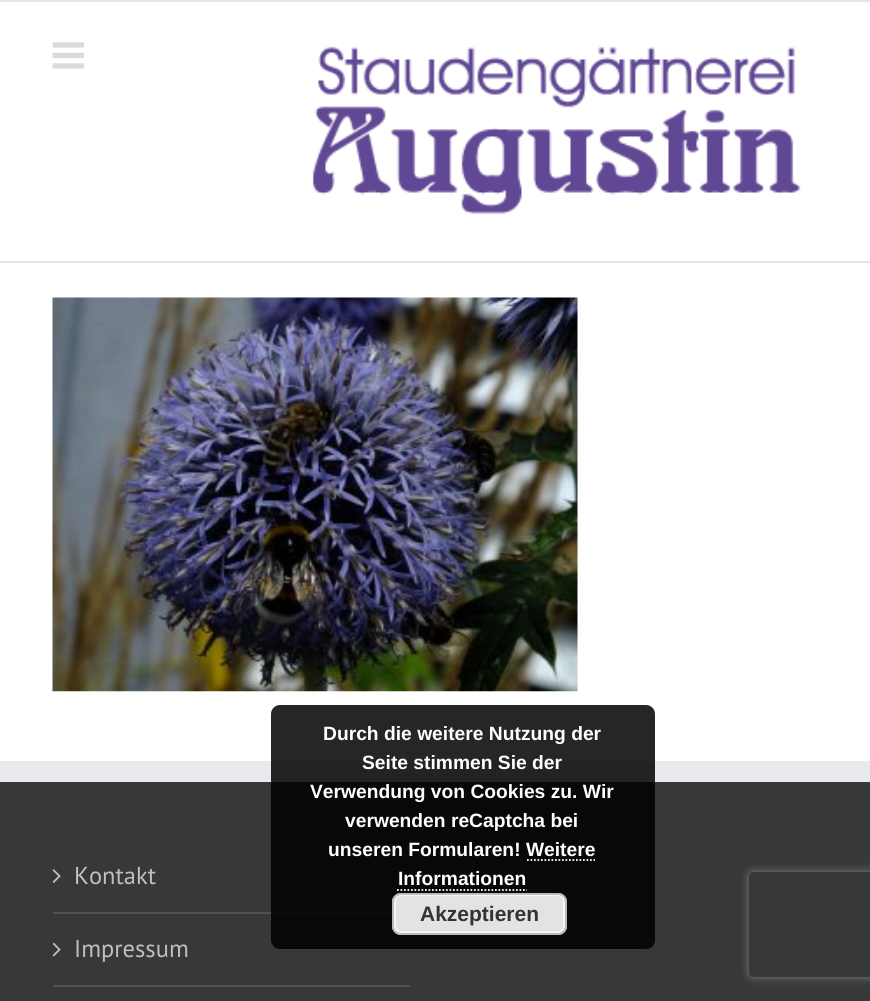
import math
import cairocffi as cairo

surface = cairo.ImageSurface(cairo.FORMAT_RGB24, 870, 1001)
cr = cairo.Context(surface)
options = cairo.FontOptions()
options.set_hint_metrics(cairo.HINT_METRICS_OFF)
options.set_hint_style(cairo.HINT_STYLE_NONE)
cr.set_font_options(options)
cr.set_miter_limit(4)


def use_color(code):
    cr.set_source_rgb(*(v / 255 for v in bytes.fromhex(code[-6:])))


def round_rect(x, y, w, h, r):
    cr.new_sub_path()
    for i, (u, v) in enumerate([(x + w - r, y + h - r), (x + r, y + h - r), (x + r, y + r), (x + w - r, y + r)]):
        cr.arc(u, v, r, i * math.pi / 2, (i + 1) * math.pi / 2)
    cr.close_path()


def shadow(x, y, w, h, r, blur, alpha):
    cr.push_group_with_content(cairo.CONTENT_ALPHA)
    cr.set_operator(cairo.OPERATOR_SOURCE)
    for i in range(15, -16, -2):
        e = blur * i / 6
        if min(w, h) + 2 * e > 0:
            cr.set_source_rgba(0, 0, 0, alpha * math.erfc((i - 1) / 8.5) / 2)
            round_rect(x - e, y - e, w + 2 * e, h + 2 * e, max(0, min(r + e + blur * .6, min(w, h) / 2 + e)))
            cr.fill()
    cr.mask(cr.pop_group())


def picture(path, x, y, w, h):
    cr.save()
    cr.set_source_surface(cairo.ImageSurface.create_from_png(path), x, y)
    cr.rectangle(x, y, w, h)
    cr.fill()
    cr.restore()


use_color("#ffffff")
cr.paint()
use_color("#e5e5e5")
cr.rectangle(0, 0, 870, 2)
cr.fill()
cr.rectangle(0, 261, 870, 2)
cr.fill()
picture("img1.png", 52, 42, 32, 27)
picture("img2.png", 312, 46, 489, 168)
picture("img3.png", 52, 297, 526, 395)
use_color("#363839")
cr.rectangle(0, 782, 870, 219)
cr.fill()
use_color("#e9eaee")
cr.rectangle(0, 761, 870, 21)
cr.fill()
use_color("#505152")
cr.rectangle(53, 912, 339, 2)
cr.fill()
picture("img4.png", 52, 869, 9, 14)
cr.select_font_face("PT Sans")
cr.set_font_size(24.5)
use_color("#bfbfbf")
cr.move_to(74, 884)
cr.show_text("Kontakt")
use_color("#505152")
cr.rectangle(53, 985, 357, 2)
cr.fill()
picture("img5.png", 52, 942, 9, 15)
use_color("#bfbfbf")
cr.move_to(74, 957)
cr.show_text("Impressum")
cr.set_source_rgba(0, 0, 0, 0.85)
round_rect(271, 705, 384, 244, 9)
cr.fill()
cr.select_font_face("Liberation Sans", cairo.FONT_SLANT_NORMAL, cairo.FONT_WEIGHT_BOLD)
cr.set_font_size(19.25)
use_color("#ffffff")
cr.move_to(323, 740)
cr.show_text("Durch die weitere Nutzung der")
cr.move_to(362, 769)
cr.show_text("Seite stimmen Sie der")
cr.move_to(310, 798)
cr.show_text("Verwendung von Cookies zu. Wir")
cr.move_to(345, 827)
cr.show_text("verwenden reCaptcha bei")
cr.move_to(328, 856)
cr.show_text("unseren Formularen! Weitere")
cr.move_to(398, 885)
cr.show_text("Informationen")
cr.new_path()
cr.move_to(527, 860)
cr.line_to(595, 860)
cr.set_line_width(1.8)
cr.set_dash([1.75, 1.75])
cr.stroke()
cr.new_path()
cr.move_to(397, 890)
cr.line_to(527, 890)
cr.stroke()
use_color("#e3e3e3")
round_rect(392, 893, 175, 42, 9)
cr.fill()
round_rect(395, 895, 169, 37, 6)
use_color("#f6f6f6")
cr.set_line_width(2)
cr.set_dash([])
cr.stroke()
round_rect(393, 894, 173, 40, 8)
use_color("#bbbbbb")
cr.stroke()
cr.set_font_size(21)
use_color("#333333")
cr.move_to(420, 921)
cr.show_text("Akzeptieren")
cr.save()
cr.set_fill_rule(cairo.FILL_RULE_EVEN_ODD)
cr.new_path()
cr.move_to(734, 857)
cr.line_to(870, 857)
cr.line_to(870, 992)
cr.line_to(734, 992)
cr.close_path()
cr.move_to(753, 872)
cr.line_to(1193, 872)
cr.curve_to(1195, 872, 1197, 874, 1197, 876)
cr.line_to(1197, 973)
cr.curve_to(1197, 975, 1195, 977, 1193, 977)
cr.line_to(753, 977)
cr.curve_to(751, 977, 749, 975, 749, 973)
cr.line_to(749, 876)
cr.curve_to(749, 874, 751, 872, 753, 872)
cr.close_path()
cr.clip()
use_color("#808080")
shadow(749, 872, 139, 105, 4, 4.5, 1)
cr.restore()
surface.write_to_png("result.png")
